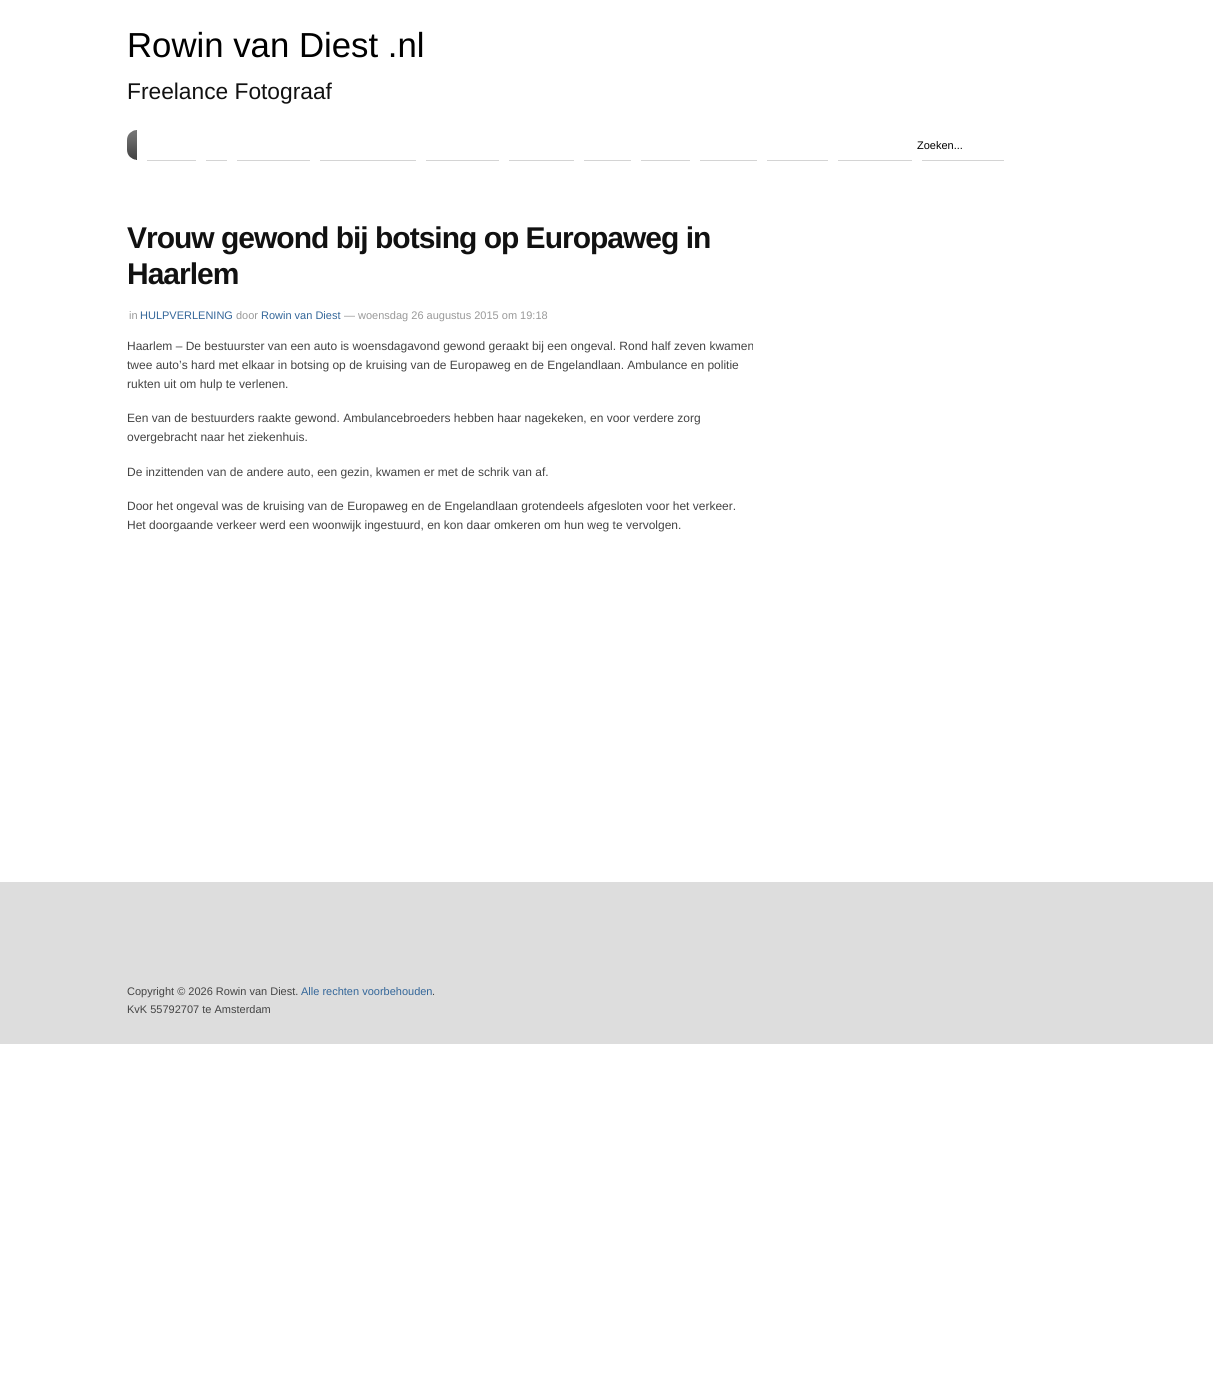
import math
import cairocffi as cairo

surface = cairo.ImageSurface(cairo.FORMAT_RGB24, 1213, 1376)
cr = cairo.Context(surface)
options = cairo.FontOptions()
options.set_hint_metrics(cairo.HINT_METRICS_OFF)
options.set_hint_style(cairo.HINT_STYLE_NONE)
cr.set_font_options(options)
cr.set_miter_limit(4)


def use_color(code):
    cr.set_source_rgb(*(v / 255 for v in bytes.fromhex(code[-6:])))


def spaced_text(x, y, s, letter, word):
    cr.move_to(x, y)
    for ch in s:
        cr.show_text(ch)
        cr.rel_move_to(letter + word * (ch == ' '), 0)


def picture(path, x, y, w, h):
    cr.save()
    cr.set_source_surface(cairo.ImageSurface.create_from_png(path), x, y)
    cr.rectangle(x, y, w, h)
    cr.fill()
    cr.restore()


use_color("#ffffff")
cr.paint()
cr.select_font_face("Liberation Sans")
cr.set_font_size(34.75)
use_color("#000000")
cr.move_to(127, 57)
cr.show_text("Rowin van Diest .nl")
cr.set_font_size(22.75)
use_color("#111111")
cr.move_to(127, 99)
cr.show_text("Freelance Fotograaf")
picture("img1.png", 127, 130, 10, 30)
use_color("#d4d4d4")
cr.rectangle(147, 160, 49, 1)
cr.fill()
cr.rectangle(206, 160, 21, 1)
cr.fill()
cr.rectangle(237, 160, 73, 1)
cr.fill()
cr.rectangle(320, 160, 96, 1)
cr.fill()
cr.rectangle(426, 160, 73, 1)
cr.fill()
cr.rectangle(509, 160, 65, 1)
cr.fill()
cr.rectangle(584, 160, 47, 1)
cr.fill()
cr.rectangle(641, 160, 49, 1)
cr.fill()
cr.rectangle(700, 160, 57, 1)
cr.fill()
cr.rectangle(767, 160, 61, 1)
cr.fill()
cr.rectangle(838, 160, 74, 1)
cr.fill()
cr.rectangle(922, 160, 82, 1)
cr.fill()
cr.set_font_size(11)
use_color("#000000")
cr.move_to(917, 149)
cr.show_text("Zoeken...")
cr.select_font_face("Liberation Sans", cairo.FONT_SLANT_NORMAL, cairo.FONT_WEIGHT_BOLD)
cr.set_font_size(30)
use_color("#111111")
spaced_text(127, 248, "Vrouw gewond bij botsing op Europaweg in", -1, 0)
spaced_text(127, 284, "Haarlem", -1, 0)
cr.select_font_face("Liberation Sans")
cr.set_font_size(11)
use_color("#999999")
cr.move_to(129, 319)
cr.show_text("in")
use_color("#336699")
cr.move_to(140, 319)
cr.show_text("HULPVERLENING")
use_color("#999999")
cr.move_to(236, 319)
cr.show_text("door")
use_color("#336699")
cr.move_to(261, 319)
cr.show_text("Rowin van Diest")
use_color("#999999")
cr.move_to(344, 319)
cr.show_text("— woensdag 26 augustus 2015 om 19:18")
cr.set_font_size(12)
use_color("#444444")
cr.move_to(127, 350)
cr.show_text("Haarlem – De bestuurster van een auto is woensdagavond gewond geraakt bij een ongeval. Rond half zeven kwamen")
cr.move_to(127, 369)
cr.show_text("twee auto’s hard met elkaar in botsing op de kruising van de Europaweg en de Engelandlaan. Ambulance en politie")
cr.move_to(127, 388)
cr.show_text("rukten uit om hulp te verlenen.")
cr.move_to(127, 422)
cr.show_text("Een van de bestuurders raakte gewond. Ambulancebroeders hebben haar nagekeken, en voor verdere zorg")
cr.move_to(127, 441)
cr.show_text("overgebracht naar het ziekenhuis.")
cr.move_to(127, 476)
cr.show_text("De inzittenden van de andere auto, een gezin, kwamen er met de schrik van af.")
cr.move_to(127, 510)
cr.show_text("Door het ongeval was de kruising van de Europaweg en de Engelandlaan grotendeels afgesloten voor het verkeer.")
cr.move_to(127, 529)
cr.show_text("Het doorgaande verkeer werd een woonwijk ingestuurd, en kon daar omkeren om hun weg te vervolgen.")
use_color("#dddddd")
cr.rectangle(0, 882, 1213, 162)
cr.fill()
cr.set_font_size(11)
use_color("#444444")
cr.move_to(127, 995)
cr.show_text("Copyright © 2026 Rowin van Diest.")
use_color("#336699")
cr.move_to(301, 995)
cr.show_text("Alle rechten voorbehouden")
use_color("#444444")
cr.move_to(432, 995)
cr.show_text(".")
cr.move_to(127, 1013)
cr.show_text("KvK 55792707 te Amsterdam")
surface.write_to_png("result.png")
